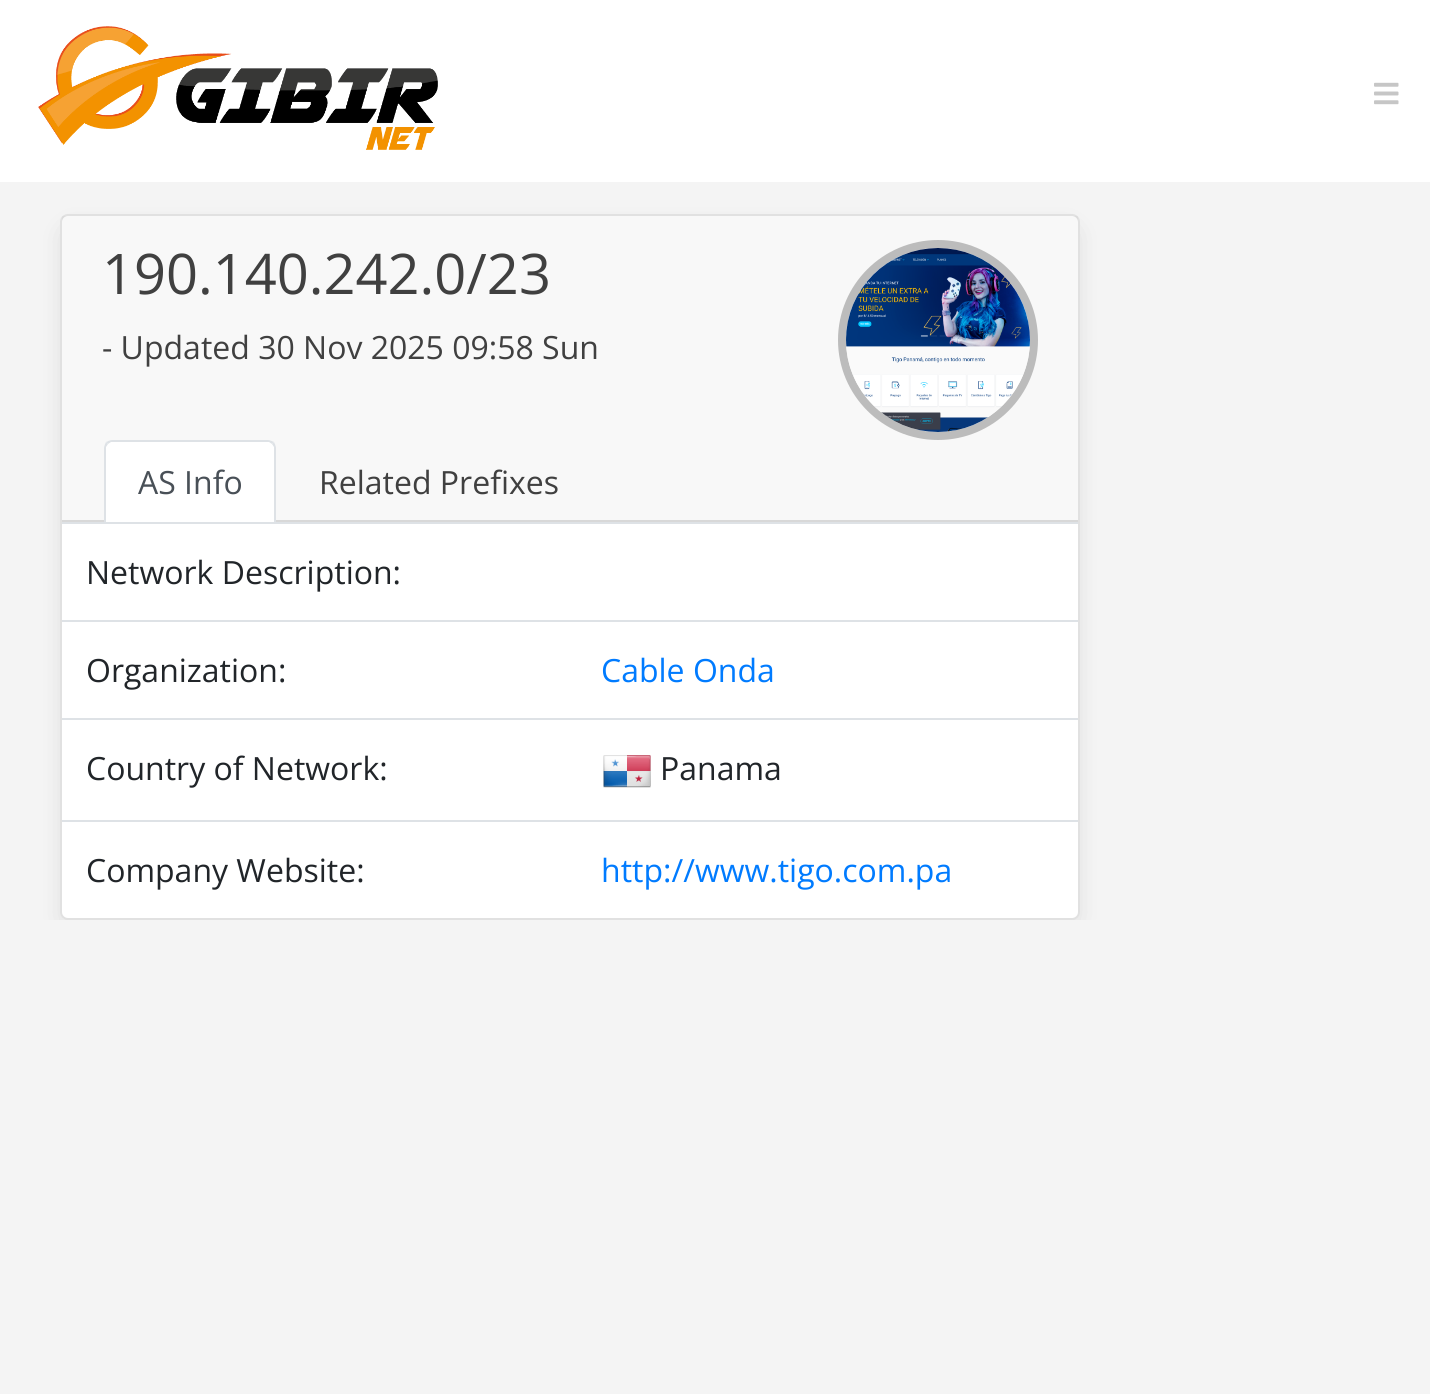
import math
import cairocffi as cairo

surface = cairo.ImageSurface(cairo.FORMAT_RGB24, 1430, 1394)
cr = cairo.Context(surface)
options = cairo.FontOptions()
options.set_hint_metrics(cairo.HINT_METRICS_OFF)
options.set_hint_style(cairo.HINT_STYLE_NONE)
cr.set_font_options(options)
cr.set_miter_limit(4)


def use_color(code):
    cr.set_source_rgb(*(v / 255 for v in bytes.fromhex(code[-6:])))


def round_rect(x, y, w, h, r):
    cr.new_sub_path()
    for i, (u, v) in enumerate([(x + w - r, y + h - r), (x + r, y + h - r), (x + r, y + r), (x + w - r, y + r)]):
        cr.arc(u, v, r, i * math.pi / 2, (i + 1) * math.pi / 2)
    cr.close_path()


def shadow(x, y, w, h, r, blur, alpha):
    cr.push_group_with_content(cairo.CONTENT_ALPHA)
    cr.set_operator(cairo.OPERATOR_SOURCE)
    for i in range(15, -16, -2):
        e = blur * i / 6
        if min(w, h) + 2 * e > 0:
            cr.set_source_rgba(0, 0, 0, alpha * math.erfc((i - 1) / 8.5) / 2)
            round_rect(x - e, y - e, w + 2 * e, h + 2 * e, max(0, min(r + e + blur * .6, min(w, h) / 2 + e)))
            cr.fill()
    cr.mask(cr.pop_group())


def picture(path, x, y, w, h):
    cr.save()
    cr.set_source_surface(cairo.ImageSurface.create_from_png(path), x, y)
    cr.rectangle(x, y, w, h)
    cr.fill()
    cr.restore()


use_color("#f4f4f4")
cr.paint()
use_color("#ffffff")
cr.rectangle(0, 0, 1430, 182)
cr.fill()
picture("img1.png", 38, 26, 400, 124)
picture("img2.png", 1374, 82, 25, 23)
cr.save()
cr.rectangle(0, 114, 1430, 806)
cr.clip()
use_color("#000000")
shadow(70, 234, 1000, 686, 0, 15, 0.15)
cr.restore()
round_rect(60, 214, 1020, 706, 8)
cr.fill()
round_rect(61, 215, 1018, 704, 7)
cr.set_source_rgba(0, 0, 0, 0.12)
cr.stroke()
cr.set_source_rgba(0, 0, 0, 0.03)
cr.rectangle(62, 216, 1016, 304)
cr.fill()
use_color("#d8d8d8")
cr.rectangle(62, 520, 1016, 2)
cr.fill()
cr.select_font_face("Open Sans")
cr.set_font_size(56)
use_color("#404040")
cr.move_to(102, 294)
cr.show_text("190.140.242.0/23")
cr.set_font_size(32)
cr.move_to(102, 359)
cr.show_text("- Updated 30 Nov 2025 09:58 Sun")
cr.new_path()
cr.arc(938, 340, 96, 0, 2 * math.pi)
use_color("#bcbcbc")
cr.set_line_width(8)
cr.stroke()
picture("img3.png", 846, 248, 184, 184)
use_color("#ffffff")
cr.new_path()
cr.move_to(112, 440)
cr.line_to(268, 440)
cr.curve_to(272.5, 440, 276, 443.5, 276, 448)
cr.line_to(276, 522)
cr.line_to(104, 522)
cr.line_to(104, 448)
cr.curve_to(104, 443.5, 107.5, 440, 112, 440)
cr.close_path()
cr.fill()
use_color("#dee2e6")
cr.new_path()
cr.move_to(112, 440)
cr.curve_to(110, 440, 108, 441, 106, 442)
cr.line_to(108, 444)
cr.line_to(111, 442)
cr.line_to(269, 442)
cr.line_to(272, 444)
cr.line_to(274, 442)
cr.curve_to(272, 441, 270, 440, 268, 440)
cr.close_path()
cr.fill()
cr.new_path()
cr.move_to(276, 524)
cr.line_to(276, 448)
cr.curve_to(276, 446, 275, 444, 274, 442)
cr.line_to(272, 444)
cr.line_to(274, 447)
cr.line_to(274, 522)
cr.close_path()
cr.fill()
cr.new_path()
cr.move_to(104, 524)
cr.line_to(106, 522)
cr.line_to(106, 447)
cr.line_to(108, 444)
cr.line_to(106, 442)
cr.curve_to(105, 444, 104, 446, 104, 448)
cr.close_path()
cr.fill()
use_color("#495057")
cr.move_to(138, 494)
cr.show_text("AS Info")
use_color("#404040")
cr.move_to(319, 494)
cr.show_text("Related Prefixes")
use_color("#dee2e6")
cr.rectangle(62, 522, 1016, 2)
cr.fill()
use_color("#212529")
cr.move_to(86, 584)
cr.show_text("Network Description:")
cr.move_to(86, 682)
cr.show_text("Organization:")
use_color("#dee2e6")
cr.rectangle(62, 620, 1016, 2)
cr.fill()
use_color("#007bff")
cr.move_to(601, 682)
cr.show_text("Cable Onda")
use_color("#212529")
cr.move_to(86, 780)
cr.show_text("Country of Network:")
use_color("#dee2e6")
cr.rectangle(62, 718, 1016, 2)
cr.fill()
picture("img4.png", 603, 755, 48, 33)
use_color("#212529")
cr.move_to(660, 780)
cr.show_text("Panama")
cr.move_to(86, 882)
cr.show_text("Company Website:")
use_color("#dee2e6")
cr.rectangle(62, 820, 1016, 2)
cr.fill()
use_color("#007bff")
cr.move_to(601, 882)
cr.show_text("http://www.tigo.com.pa")
surface.write_to_png("result.png")
